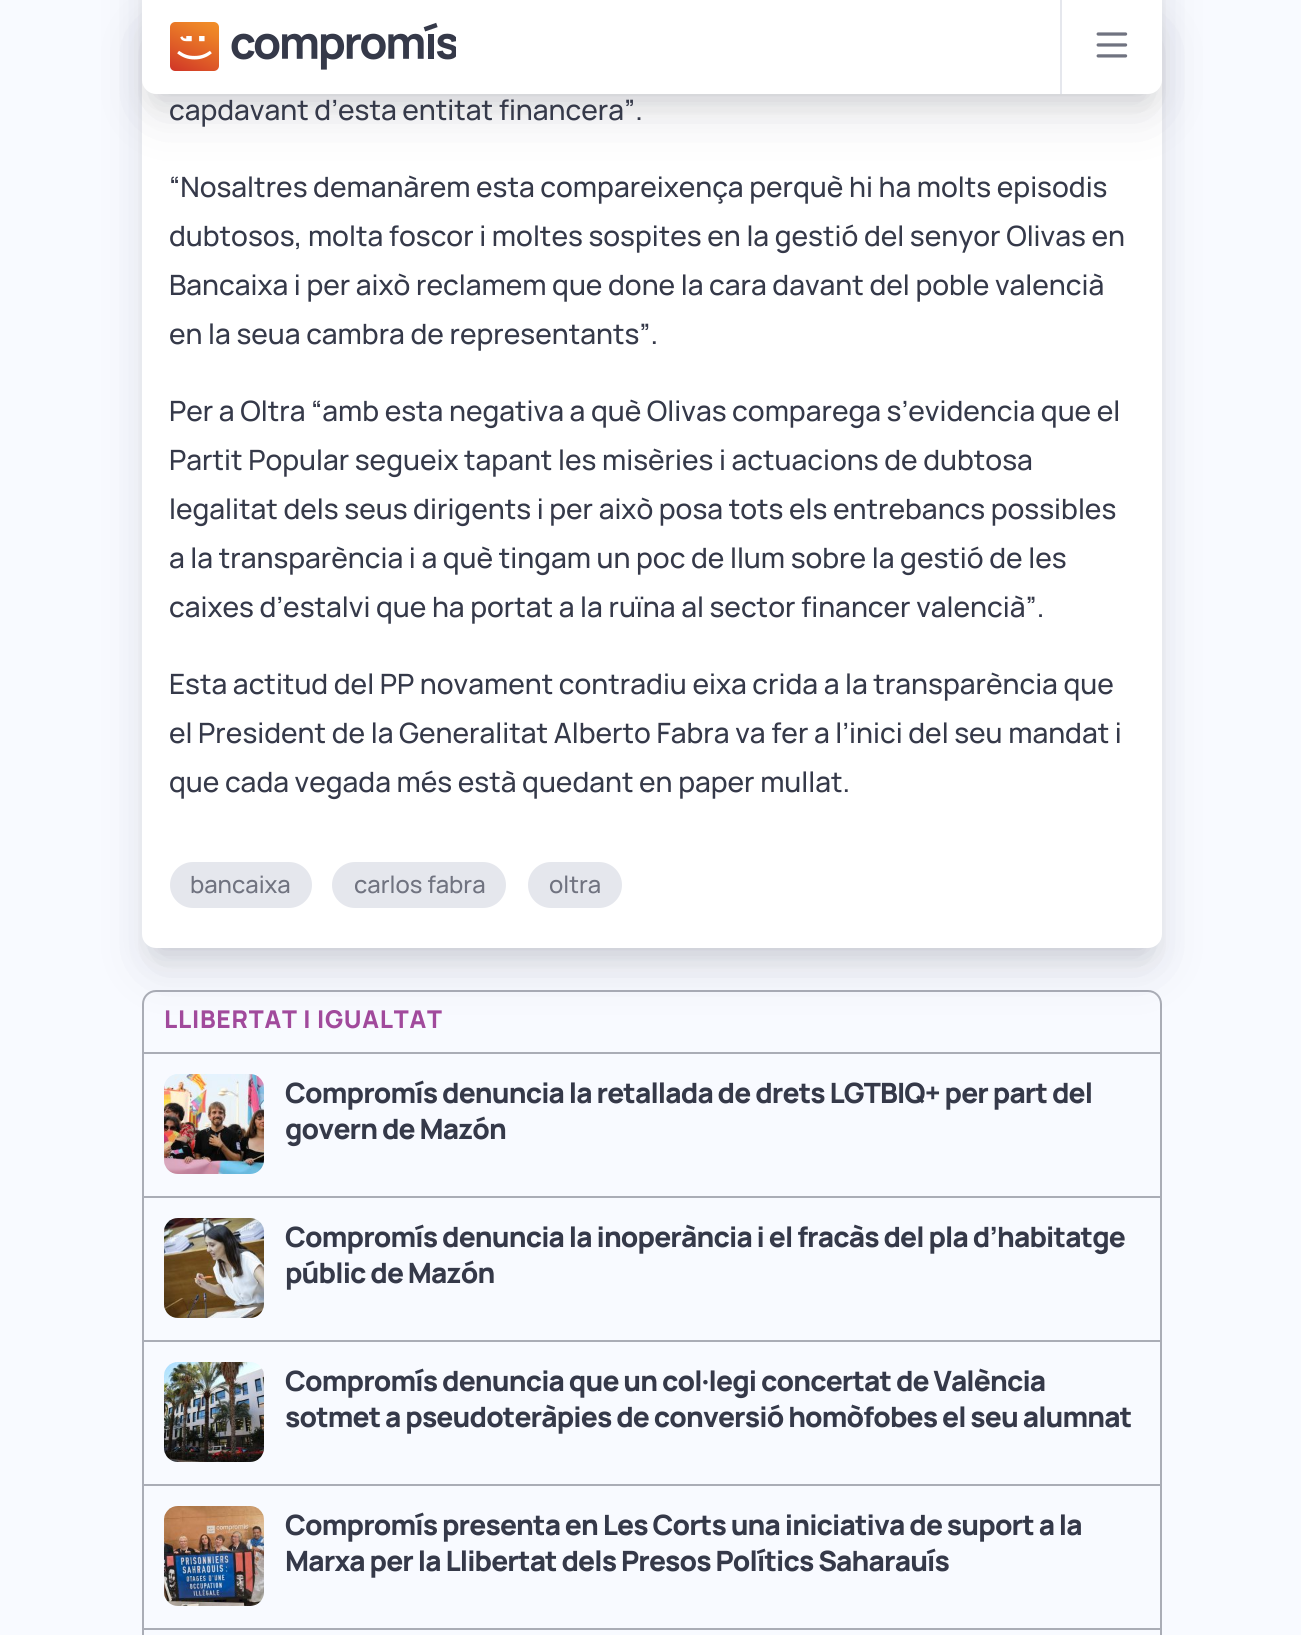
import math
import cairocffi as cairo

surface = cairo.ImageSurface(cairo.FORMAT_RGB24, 1301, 1635)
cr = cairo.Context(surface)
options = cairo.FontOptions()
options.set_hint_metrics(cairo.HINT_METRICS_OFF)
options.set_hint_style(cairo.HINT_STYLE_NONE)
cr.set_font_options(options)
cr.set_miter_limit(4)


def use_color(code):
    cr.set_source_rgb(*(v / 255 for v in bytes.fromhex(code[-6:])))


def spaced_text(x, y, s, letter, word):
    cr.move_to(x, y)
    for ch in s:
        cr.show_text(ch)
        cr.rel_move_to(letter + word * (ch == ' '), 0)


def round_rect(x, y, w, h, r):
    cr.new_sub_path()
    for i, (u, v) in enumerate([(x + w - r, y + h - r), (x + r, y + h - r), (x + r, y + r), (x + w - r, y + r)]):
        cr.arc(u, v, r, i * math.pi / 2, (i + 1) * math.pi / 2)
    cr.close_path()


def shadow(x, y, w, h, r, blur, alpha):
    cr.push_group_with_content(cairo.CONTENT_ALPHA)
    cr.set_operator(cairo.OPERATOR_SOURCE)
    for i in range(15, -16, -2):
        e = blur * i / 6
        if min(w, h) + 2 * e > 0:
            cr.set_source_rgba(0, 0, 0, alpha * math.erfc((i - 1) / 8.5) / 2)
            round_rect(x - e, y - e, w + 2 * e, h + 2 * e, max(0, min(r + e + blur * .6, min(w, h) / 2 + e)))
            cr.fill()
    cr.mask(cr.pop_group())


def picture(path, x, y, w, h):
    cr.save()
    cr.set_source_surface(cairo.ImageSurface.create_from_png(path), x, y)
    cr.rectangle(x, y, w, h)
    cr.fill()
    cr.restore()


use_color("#f8faff")
cr.paint()
round_rect(143, 991, 1018, 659, 13)
use_color("#aaadb6")
cr.stroke()
use_color("#353949")
shadow(158, -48, 988, 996, 0, 16, 0.2)
shadow(152, -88, 1000, 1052, 4, 28, 0.15)
use_color("#ffffff")
round_rect(142, -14, 1020, 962, 14)
cr.fill()
use_color("#353949")
shadow(158, 32, 988, 62, 0, 16, 0.2)
shadow(152, 36, 1000, 74, 4, 28, 0.15)
use_color("#ffffff")
cr.new_path()
cr.move_to(142, 0)
cr.line_to(1162, 0)
cr.line_to(1162, 80)
cr.curve_to(1162, 87.5, 1155.5, 94, 1148, 94)
cr.line_to(156, 94)
cr.curve_to(148.5, 94, 142, 87.5, 142, 80)
cr.close_path()
cr.fill()
picture("img1.png", 170, 22, 286, 49)
use_color("#e5e7ed")
cr.rectangle(1060, 0, 2, 94)
cr.fill()
picture("img2.png", 1096, 32, 32, 26)
cr.select_font_face("Manrope Medium")
cr.set_font_size(28)
use_color("#353949")
cr.move_to(169, 120)
cr.show_text("capdavant d’esta entitat financera”.")
cr.move_to(169, 197)
cr.show_text("“Nosaltres demanàrem esta compareixença perquè hi ha molts episodis")
cr.move_to(169, 246)
cr.show_text("dubtosos, molta foscor i moltes sospites en la gestió del senyor Olivas en")
cr.move_to(169, 295)
cr.show_text("Bancaixa i per això reclamem que done la cara davant del poble valencià")
cr.move_to(169, 344)
cr.show_text("en la seua cambra de representants”.")
cr.move_to(169, 421)
cr.show_text("Per a Oltra “amb esta negativa a què Olivas comparega s’evidencia que el")
cr.move_to(169, 470)
cr.show_text("Partit Popular segueix tapant les misèries i actuacions de dubtosa")
cr.move_to(169, 519)
cr.show_text("legalitat dels seus dirigents i per això posa tots els entrebancs possibles")
cr.move_to(169, 568)
cr.show_text("a la transparència i a què tingam un poc de llum sobre la gestió de les")
cr.move_to(169, 617)
cr.show_text("caixes d’estalvi que ha portat a la ruïna al sector financer valencià”.")
cr.move_to(169, 694)
cr.show_text("Esta actitud del PP novament contradiu eixa crida a la transparència que")
cr.move_to(169, 743)
cr.show_text("el President de la Generalitat Alberto Fabra va fer a l’inici del seu mandat i")
cr.move_to(169, 792)
cr.show_text("que cada vegada més està quedant en paper mullat.")
use_color("#e5e7ed")
round_rect(170, 862, 142, 46, 23)
cr.fill()
cr.set_font_size(23.75)
use_color("#707380")
cr.move_to(190, 893)
cr.show_text("bancaixa")
use_color("#e5e7ed")
round_rect(332, 862, 174, 46, 23)
cr.fill()
use_color("#707380")
cr.move_to(354, 893)
cr.show_text("carlos fabra")
use_color("#e5e7ed")
round_rect(528, 862, 94, 46, 23)
cr.fill()
use_color("#707380")
cr.move_to(549, 893)
cr.show_text("oltra")
cr.select_font_face("Manrope ExtraBold")
cr.set_font_size(24.5)
use_color("#a14a9c")
spaced_text(164, 1028, "LLIBERTAT I IGUALTAT", 0.75, 0)
use_color("#aaadb6")
cr.rectangle(144, 1052, 1016, 2)
cr.fill()
picture("img3.png", 164, 1074, 100, 100)
cr.set_font_size(28)
use_color("#353949")
spaced_text(285, 1103, "Compromís denuncia la retallada de drets LGTBIQ+ per part del", -0.85, 0)
spaced_text(285, 1139, "govern de Mazón", -0.85, 0)
use_color("#aaadb6")
cr.rectangle(144, 1196, 1016, 2)
cr.fill()
picture("img4.png", 164, 1218, 100, 100)
use_color("#353949")
spaced_text(285, 1247, "Compromís denuncia la inoperància i el fracàs del pla d’habitatge", -0.85, 0)
spaced_text(285, 1283, "públic de Mazón", -0.85, 0)
use_color("#aaadb6")
cr.rectangle(144, 1340, 1016, 2)
cr.fill()
picture("img5.png", 164, 1362, 100, 100)
use_color("#353949")
spaced_text(285, 1391, "Compromís denuncia que un col·legi concertat de València", -0.85, 0)
spaced_text(285, 1427, "sotmet a pseudoteràpies de conversió homòfobes el seu alumnat", -0.85, 0)
use_color("#aaadb6")
cr.rectangle(144, 1484, 1016, 2)
cr.fill()
picture("img6.png", 164, 1506, 100, 100)
use_color("#353949")
spaced_text(285, 1535, "Compromís presenta en Les Corts una iniciativa de suport a la", -0.85, 0)
spaced_text(285, 1571, "Marxa per la Llibertat dels Presos Polítics Saharauís", -0.85, 0)
use_color("#aaadb6")
cr.rectangle(144, 1628, 1016, 2)
cr.fill()
surface.write_to_png("result.png")
